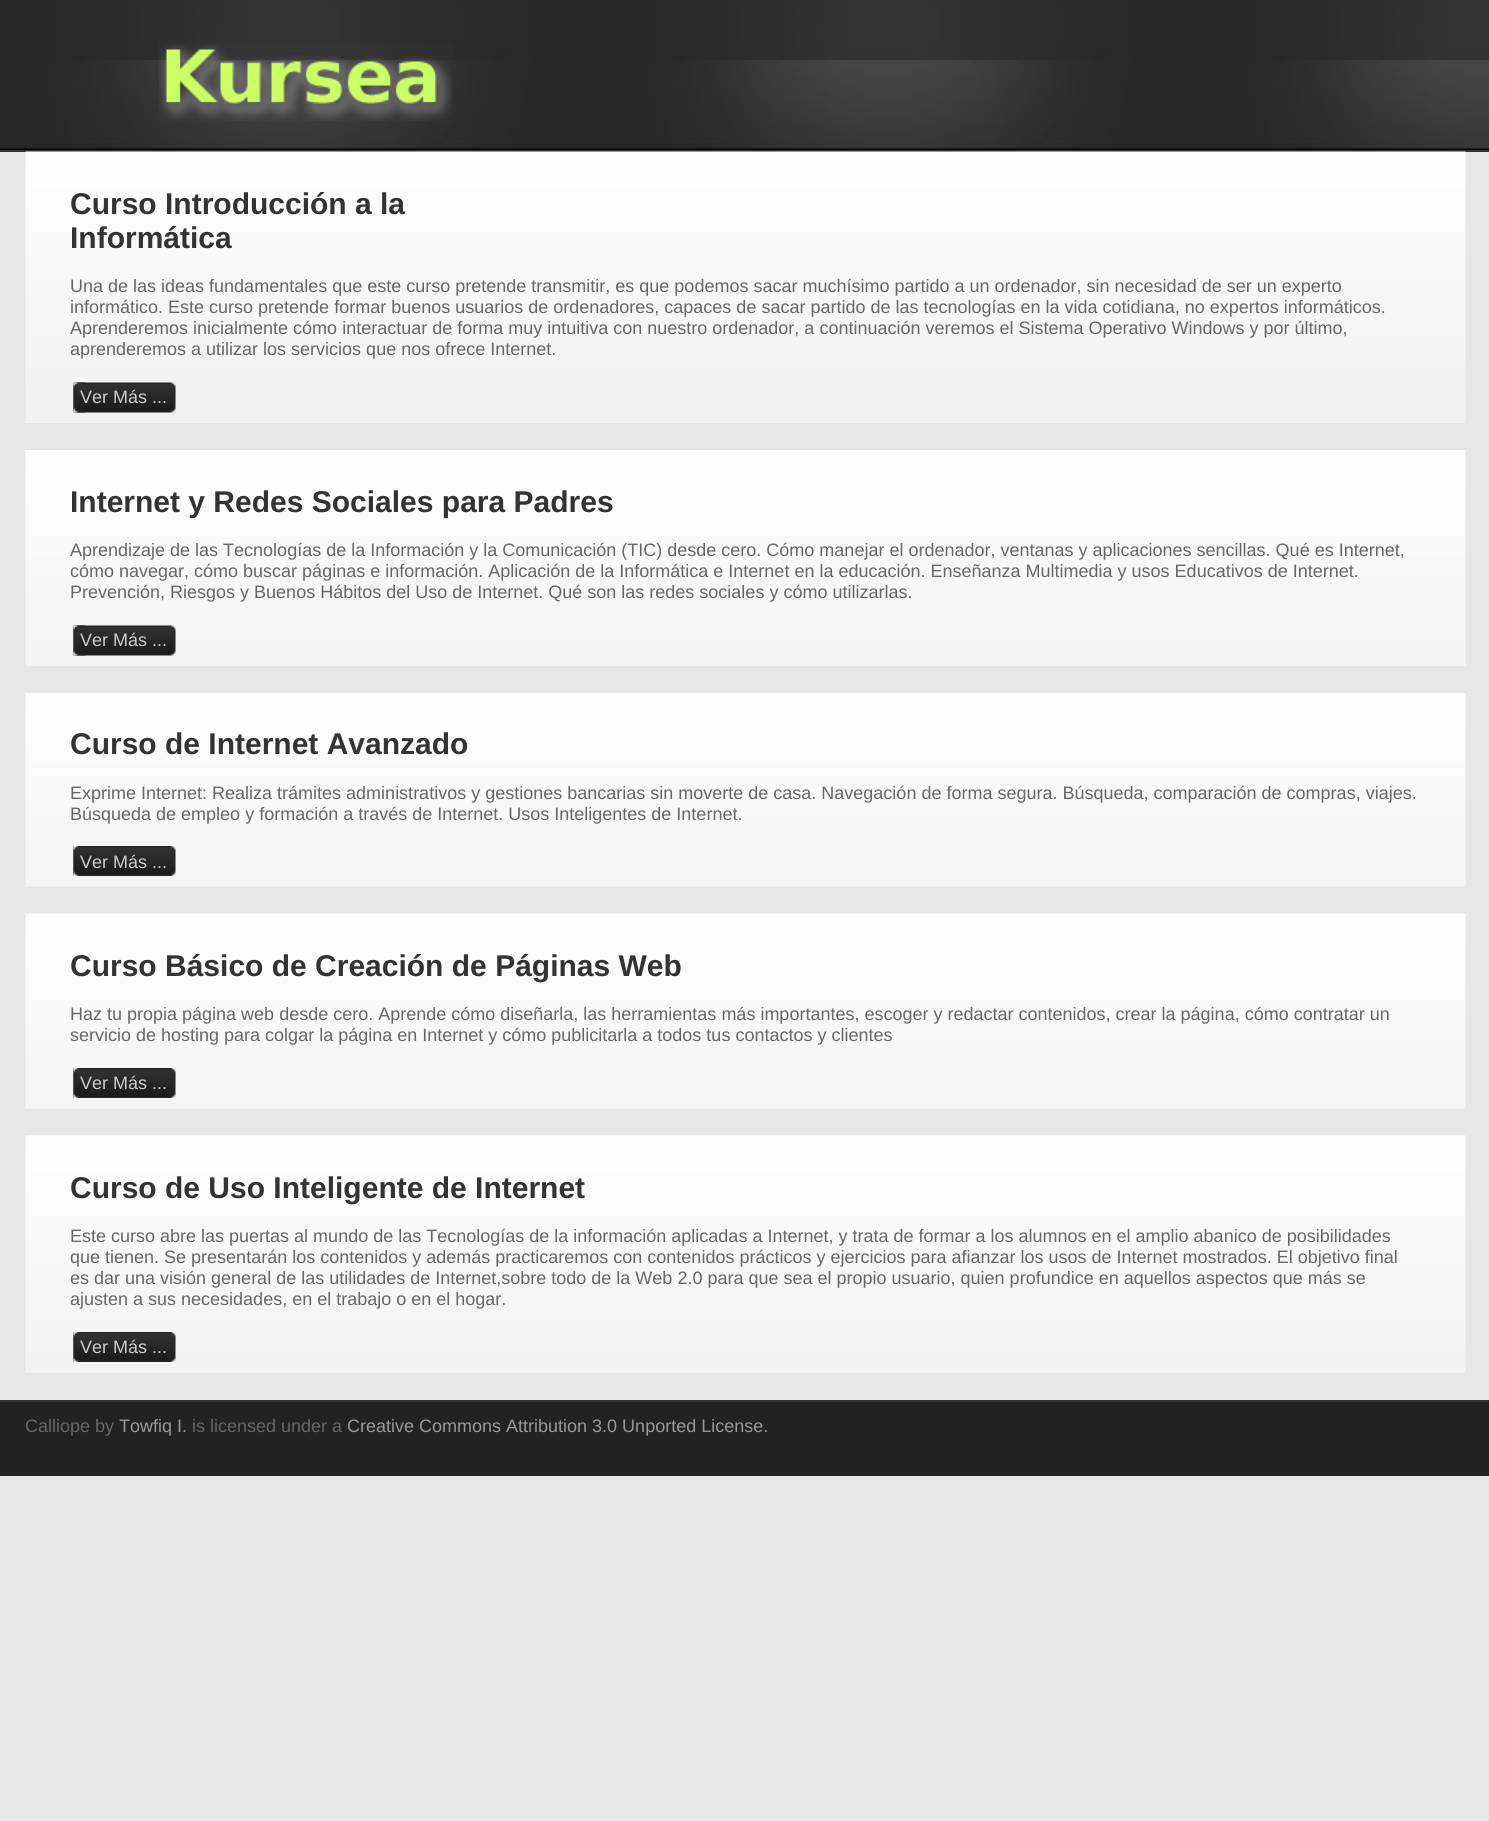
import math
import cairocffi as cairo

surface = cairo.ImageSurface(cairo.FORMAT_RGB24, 1489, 1821)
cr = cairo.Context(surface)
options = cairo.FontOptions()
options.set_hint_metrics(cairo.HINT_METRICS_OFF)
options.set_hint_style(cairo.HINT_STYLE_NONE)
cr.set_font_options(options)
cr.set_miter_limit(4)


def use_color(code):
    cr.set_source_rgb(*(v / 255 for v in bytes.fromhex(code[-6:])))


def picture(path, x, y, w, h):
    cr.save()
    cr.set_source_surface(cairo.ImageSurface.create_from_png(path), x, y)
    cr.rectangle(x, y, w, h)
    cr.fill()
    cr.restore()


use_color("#e6e6e6")
cr.paint()
picture("img1.png", 0, 0, 1489, 150)
use_color("#333333")
cr.rectangle(0, 150, 1489, 2)
cr.fill()
picture("img2.png", 159, 43, 294, 78)
picture("img3.png", 25, 151, 1441, 272)
cr.select_font_face("Liberation Sans", cairo.FONT_SLANT_NORMAL, cairo.FONT_WEIGHT_BOLD)
cr.set_font_size(30)
cr.move_to(70, 214)
cr.show_text("Curso Introducción a la")
cr.move_to(70, 248)
cr.show_text("Informática")
cr.select_font_face("Liberation Sans")
cr.set_font_size(18)
use_color("#666666")
cr.move_to(70, 292)
cr.show_text("Una de las ideas fundamentales que este curso pretende transmitir, es que podemos sacar muchísimo partido a un ordenador, sin necesidad de ser un experto")
cr.move_to(70, 313)
cr.show_text("informático. Este curso pretende formar buenos usuarios de ordenadores, capaces de sacar partido de las tecnologías en la vida cotidiana, no expertos informáticos.")
cr.move_to(70, 334)
cr.show_text("Aprenderemos inicialmente cómo interactuar de forma muy intuitiva con nuestro ordenador, a continuación veremos el Sistema Operativo Windows y por último,")
cr.move_to(70, 355)
cr.show_text("aprenderemos a utilizar los servicios que nos ofrece Internet.")
picture("img4.png", 73, 382, 103, 31)
picture("img5.png", 73, 382, 13, 31)
use_color("#cccccc")
cr.move_to(80, 403)
cr.show_text("Ver Más ...")
picture("img6.png", 25, 450, 1441, 216)
cr.select_font_face("Liberation Sans", cairo.FONT_SLANT_NORMAL, cairo.FONT_WEIGHT_BOLD)
cr.set_font_size(30)
use_color("#333333")
cr.move_to(70, 512)
cr.show_text("Internet y Redes Sociales para Padres")
cr.select_font_face("Liberation Sans")
cr.set_font_size(18)
use_color("#666666")
cr.move_to(70, 556)
cr.show_text("Aprendizaje de las Tecnologías de la Información y la Comunicación (TIC) desde cero. Cómo manejar el ordenador, ventanas y aplicaciones sencillas. Qué es Internet,")
cr.move_to(70, 577)
cr.show_text("cómo navegar, cómo buscar páginas e información. Aplicación de la Informática e Internet en la educación. Enseñanza Multimedia y usos Educativos de Internet.")
cr.move_to(70, 598)
cr.show_text("Prevención, Riesgos y Buenos Hábitos del Uso de Internet. Qué son las redes sociales y cómo utilizarlas.")
picture("img7.png", 73, 625, 103, 31)
picture("img8.png", 73, 625, 13, 31)
use_color("#cccccc")
cr.move_to(80, 646)
cr.show_text("Ver Más ...")
picture("img9.png", 25, 693, 1441, 194)
cr.select_font_face("Liberation Sans", cairo.FONT_SLANT_NORMAL, cairo.FONT_WEIGHT_BOLD)
cr.set_font_size(30)
use_color("#333333")
cr.move_to(70, 754)
cr.show_text("Curso de Internet Avanzado")
cr.select_font_face("Liberation Sans")
cr.set_font_size(18)
use_color("#666666")
cr.move_to(70, 799)
cr.show_text("Exprime Internet: Realiza trámites administrativos y gestiones bancarias sin moverte de casa. Navegación de forma segura. Búsqueda, comparación de compras, viajes.")
cr.move_to(70, 820)
cr.show_text("Búsqueda de empleo y formación a través de Internet. Usos Inteligentes de Internet.")
picture("img10.png", 73, 846, 103, 30)
picture("img11.png", 73, 846, 6, 30)
use_color("#cccccc")
cr.move_to(80, 868)
cr.show_text("Ver Más ...")
picture("img12.png", 25, 913, 1441, 196)
cr.select_font_face("Liberation Sans", cairo.FONT_SLANT_NORMAL, cairo.FONT_WEIGHT_BOLD)
cr.set_font_size(30)
use_color("#333333")
cr.move_to(70, 976)
cr.show_text("Curso Básico de Creación de Páginas Web")
cr.select_font_face("Liberation Sans")
cr.set_font_size(18)
use_color("#666666")
cr.move_to(70, 1020)
cr.show_text("Haz tu propia página web desde cero. Aprende cómo diseñarla, las herramientas más importantes, escoger y redactar contenidos, crear la página, cómo contratar un")
cr.move_to(70, 1041)
cr.show_text("servicio de hosting para colgar la página en Internet y cómo publicitarla a todos tus contactos y clientes")
picture("img13.png", 73, 1068, 103, 30)
picture("img14.png", 73, 1068, 6, 30)
use_color("#cccccc")
cr.move_to(80, 1089)
cr.show_text("Ver Más ...")
picture("img15.png", 25, 1135, 1441, 238)
cr.select_font_face("Liberation Sans", cairo.FONT_SLANT_NORMAL, cairo.FONT_WEIGHT_BOLD)
cr.set_font_size(30)
use_color("#333333")
cr.move_to(70, 1198)
cr.show_text("Curso de Uso Inteligente de Internet")
cr.select_font_face("Liberation Sans")
cr.set_font_size(18)
use_color("#666666")
cr.move_to(70, 1242)
cr.show_text("Este curso abre las puertas al mundo de las Tecnologías de la información aplicadas a Internet, y trata de formar a los alumnos en el amplio abanico de posibilidades")
cr.move_to(70, 1263)
cr.show_text("que tienen. Se presentarán los contenidos y además practicaremos con contenidos prácticos y ejercicios para afianzar los usos de Internet mostrados. El objetivo final")
cr.move_to(70, 1284)
cr.show_text("es dar una visión general de las utilidades de Internet,sobre todo de la Web 2.0 para que sea el propio usuario, quien profundice en aquellos aspectos que más se")
cr.move_to(70, 1305)
cr.show_text("ajusten a sus necesidades, en el trabajo o en el hogar.")
picture("img16.png", 73, 1332, 103, 30)
picture("img17.png", 73, 1332, 6, 30)
use_color("#cccccc")
cr.move_to(80, 1353)
cr.show_text("Ver Más ...")
use_color("#222222")
cr.rectangle(0, 1402, 1489, 74)
cr.fill()
use_color("#333333")
cr.rectangle(0, 1400, 1489, 2)
cr.fill()
use_color("#666666")
cr.move_to(25, 1432)
cr.show_text("Calliope by")
use_color("#999999")
cr.move_to(119, 1432)
cr.show_text("Towfiq I.")
use_color("#666666")
cr.move_to(192, 1432)
cr.show_text("is licensed under a")
use_color("#999999")
cr.move_to(347, 1432)
cr.show_text("Creative Commons Attribution 3.0 Unported License.")
surface.write_to_png("result.png")
